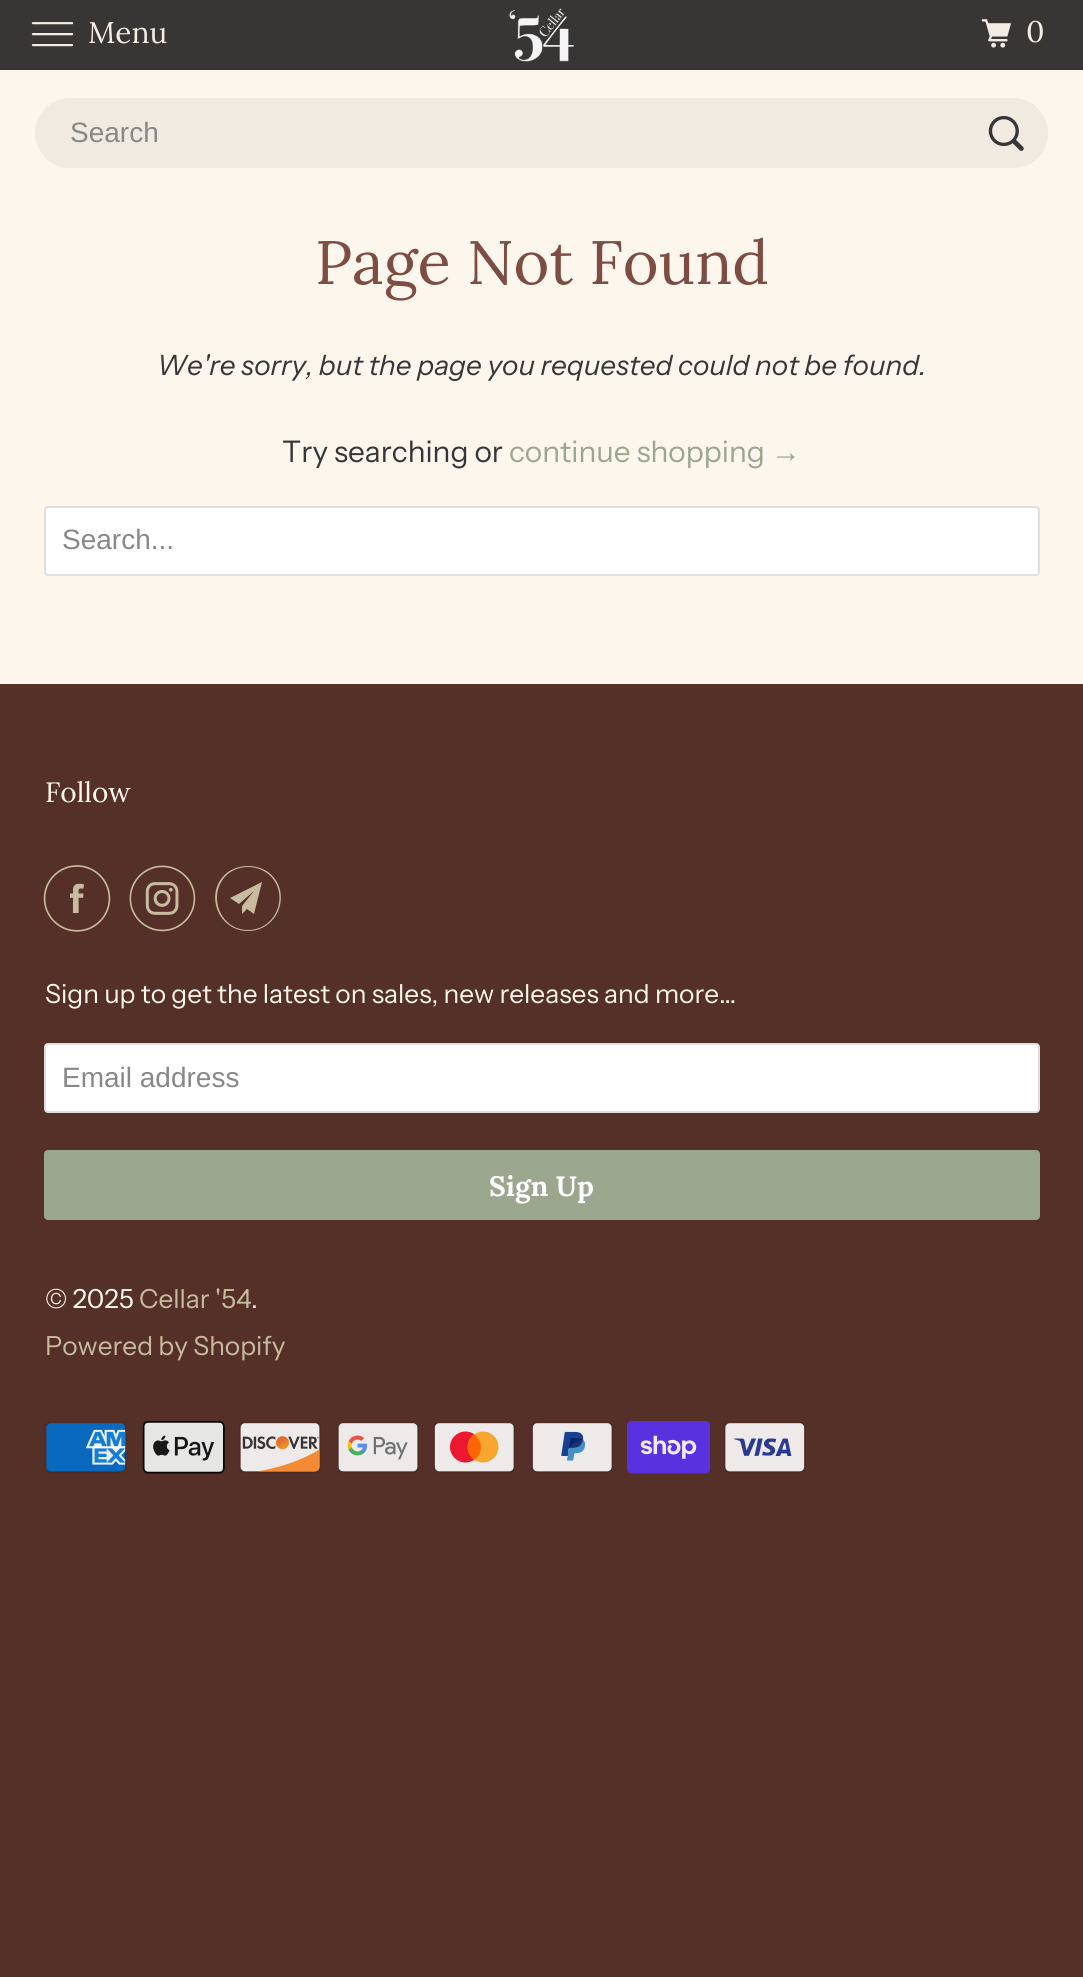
import math
import cairocffi as cairo

surface = cairo.ImageSurface(cairo.FORMAT_RGB24, 1083, 1977)
cr = cairo.Context(surface)
options = cairo.FontOptions()
options.set_hint_metrics(cairo.HINT_METRICS_OFF)
options.set_hint_style(cairo.HINT_STYLE_NONE)
cr.set_font_options(options)
cr.set_miter_limit(4)


def use_color(code):
    cr.set_source_rgb(*(v / 255 for v in bytes.fromhex(code[-6:])))


def round_rect(x, y, w, h, r):
    cr.new_sub_path()
    for i, (u, v) in enumerate([(x + w - r, y + h - r), (x + r, y + h - r), (x + r, y + r), (x + w - r, y + r)]):
        cr.arc(u, v, r, i * math.pi / 2, (i + 1) * math.pi / 2)
    cr.close_path()


def picture(path, x, y, w, h):
    cr.save()
    cr.set_source_surface(cairo.ImageSurface.create_from_png(path), x, y)
    cr.rectangle(x, y, w, h)
    cr.fill()
    cr.restore()


use_color("#543028")
cr.paint()
use_color("#383635")
cr.rectangle(0, 0, 1083, 70)
cr.fill()
picture("img1.png", 31, 22, 43, 25)
cr.select_font_face("Lora")
cr.set_font_size(29.75)
use_color("#f5ece3")
cr.move_to(88, 43)
cr.show_text("Menu")
picture("img2.png", 509, 8, 65, 54)
picture("img3.png", 981, 19, 30, 29)
cr.move_to(1026, 42)
cr.show_text("0")
use_color("#fdf6ed")
cr.rectangle(0, 70, 1083, 614)
cr.fill()
use_color("#f0eae1")
round_rect(35, 98, 1013, 70, 35)
cr.fill()
cr.select_font_face("Liberation Sans")
cr.set_font_size(28)
use_color("#888888")
cr.move_to(70, 142)
cr.show_text("Search")
picture("img4.png", 988, 115, 36, 36)
cr.select_font_face("Lora")
cr.set_font_size(61.25)
use_color("#7d4c43")
cr.move_to(315, 284)
cr.show_text("Page Not Found")
cr.select_font_face("Instrument Sans", cairo.FONT_SLANT_ITALIC)
cr.set_font_size(28)
use_color("#363636")
cr.move_to(157, 375)
cr.show_text("We're sorry, but the page you requested could not be found.")
cr.select_font_face("Instrument Sans")
cr.set_font_size(29.75)
cr.move_to(282, 462)
cr.show_text("Try searching or")
use_color("#9aa68e")
cr.move_to(509, 462)
cr.show_text("continue shopping")
cr.select_font_face("Liberation Sans")
cr.move_to(771, 462)
cr.show_text("→")
use_color("#ffffff")
round_rect(45, 507, 994, 68, 3)
cr.fill_preserve()
use_color("#dfdfdf")
cr.stroke()
cr.set_font_size(28)
use_color("#888888")
cr.move_to(62, 549)
cr.show_text("Search...")
cr.select_font_face("Lora")
use_color("#fdf6ed")
cr.move_to(45, 802)
cr.show_text("Follow")
picture("img5.png", 43, 865, 68, 67)
picture("img6.png", 129, 865, 67, 67)
use_color("#c8bca0")
cr.new_path()
cr.move_to(254, 914)
cr.line_to(247, 909)
cr.line_to(242, 914)
cr.line_to(242, 906)
cr.line_to(254, 891)
cr.line_to(239, 904)
cr.line_to(230, 898)
cr.line_to(262, 882)
cr.close_path()
cr.move_to(248, 867)
cr.curve_to(241, 867, 235, 869, 229, 873)
cr.curve_to(206, 891, 218, 930, 248, 930)
cr.curve_to(278, 930, 291, 891, 267, 873)
cr.curve_to(261, 869, 255, 867, 248, 867)
cr.close_path()
cr.move_to(248, 931)
cr.curve_to(217, 931, 203, 891, 228, 872)
cr.curve_to(234, 868, 241, 866, 248, 866)
cr.curve_to(255, 866, 262, 868, 268, 872)
cr.curve_to(293, 891, 279, 931, 248, 931)
cr.close_path()
cr.fill()
cr.select_font_face("Instrument Sans")
cr.set_font_size(26.25)
use_color("#fdf6ed")
cr.move_to(45, 1003)
cr.show_text("Sign up to get the latest on sales, new releases and more…")
use_color("#ffffff")
round_rect(45, 1044, 994, 68, 3)
cr.fill_preserve()
use_color("#dfdfdf")
cr.stroke()
cr.select_font_face("Liberation Sans")
cr.set_font_size(28)
use_color("#888888")
cr.move_to(62, 1087)
cr.show_text("Email address")
use_color("#9aa68e")
round_rect(44, 1150, 996, 70, 4)
cr.fill()
cr.select_font_face("Lora", cairo.FONT_SLANT_NORMAL, cairo.FONT_WEIGHT_BOLD)
use_color("#ffffff")
cr.move_to(489, 1196)
cr.show_text("Sign Up")
cr.select_font_face("Instrument Sans")
cr.set_font_size(26.25)
use_color("#fdf6ed")
cr.move_to(45, 1308)
cr.show_text("© 2025")
use_color("#c8bca0")
cr.move_to(139, 1308)
cr.show_text("Cellar '54")
use_color("#fdf6ed")
cr.move_to(251, 1308)
cr.show_text(".")
use_color("#c8bca0")
cr.move_to(45, 1355)
cr.show_text("Powered by Shopify")
picture("img7.png", 44, 1421, 83, 52)
picture("img8.png", 142, 1421, 83, 53)
picture("img9.png", 239, 1421, 82, 52)
picture("img10.png", 337, 1421, 82, 52)
picture("img11.png", 433, 1421, 83, 52)
picture("img12.png", 531, 1421, 83, 52)
picture("img13.png", 627, 1421, 84, 53)
picture("img14.png", 723, 1421, 83, 52)
surface.write_to_png("result.png")
